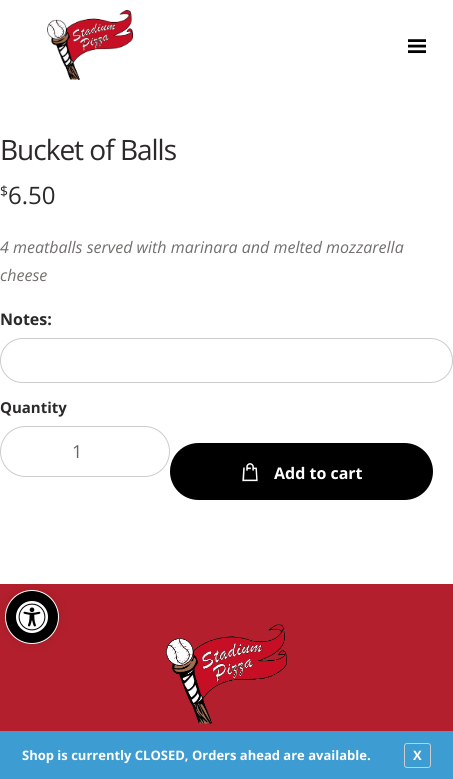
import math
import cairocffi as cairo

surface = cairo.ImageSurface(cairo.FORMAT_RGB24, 453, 779)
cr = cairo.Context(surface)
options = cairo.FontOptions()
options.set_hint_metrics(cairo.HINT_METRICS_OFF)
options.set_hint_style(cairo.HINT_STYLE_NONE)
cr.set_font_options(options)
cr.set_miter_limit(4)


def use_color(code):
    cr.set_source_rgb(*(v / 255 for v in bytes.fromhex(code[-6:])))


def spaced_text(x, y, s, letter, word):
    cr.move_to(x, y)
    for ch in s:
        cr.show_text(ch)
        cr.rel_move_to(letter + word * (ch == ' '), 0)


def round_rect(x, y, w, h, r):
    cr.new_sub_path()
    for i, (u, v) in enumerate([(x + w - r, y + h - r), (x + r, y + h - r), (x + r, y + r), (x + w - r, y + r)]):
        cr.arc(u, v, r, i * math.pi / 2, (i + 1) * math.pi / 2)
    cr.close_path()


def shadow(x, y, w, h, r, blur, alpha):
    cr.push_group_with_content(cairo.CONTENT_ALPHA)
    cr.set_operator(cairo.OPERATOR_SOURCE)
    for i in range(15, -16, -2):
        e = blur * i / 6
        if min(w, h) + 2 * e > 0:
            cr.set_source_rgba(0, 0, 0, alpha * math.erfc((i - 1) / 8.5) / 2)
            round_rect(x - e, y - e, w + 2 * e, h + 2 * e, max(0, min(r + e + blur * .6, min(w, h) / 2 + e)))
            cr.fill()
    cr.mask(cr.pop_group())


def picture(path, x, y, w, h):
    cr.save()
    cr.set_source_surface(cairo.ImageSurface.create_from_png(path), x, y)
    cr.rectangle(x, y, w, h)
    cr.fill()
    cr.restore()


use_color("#ffffff")
cr.paint()
picture("img1.png", 47, 10, 86, 70)
picture("img2.png", 408, 39, 18, 15)
cr.select_font_face("Open Sans")
cr.set_font_size(28)
use_color("#2b2929")
spaced_text(0, 160, "Bucket of Balls", -1, 0)
cr.set_font_size(14)
cr.move_to(0, 196)
cr.show_text("$")
cr.set_font_size(24)
cr.move_to(8, 204)
cr.show_text("6.50")
cr.select_font_face("Open Sans", cairo.FONT_SLANT_ITALIC)
cr.set_font_size(16)
use_color("#71706c")
cr.move_to(0, 253)
cr.show_text("4 meatballs served with marinara and melted mozzarella")
cr.move_to(0, 281)
cr.show_text("cheese")
cr.select_font_face("Open Sans", cairo.FONT_SLANT_NORMAL, cairo.FONT_WEIGHT_BOLD)
use_color("#2b2929")
cr.move_to(0, 325)
cr.show_text("Notes:")
round_rect(0.5, 338.5, 452, 44, 22)
use_color("#cccccc")
cr.set_line_width(1)
cr.stroke()
cr.set_font_size(15)
use_color("#2b2929")
cr.move_to(0, 413)
cr.show_text("Quantity")
round_rect(0.5, 426.5, 169, 50, 25)
use_color("#cccccc")
cr.stroke()
cr.select_font_face("Open Sans")
cr.set_font_size(18)
use_color("#666666")
cr.move_to(72, 458)
cr.show_text("1")
use_color("#000000")
round_rect(170, 443, 263, 57, 28.5)
cr.fill()
picture("img3.png", 242, 463, 16, 19)
cr.select_font_face("Open Sans", cairo.FONT_SLANT_NORMAL, cairo.FONT_WEIGHT_BOLD)
cr.set_font_size(16)
use_color("#ffffff")
cr.move_to(274, 479)
cr.show_text("Add to cart")
use_color("#b31f2c")
cr.rectangle(0, 584, 453, 147)
cr.fill()
picture("img4.png", 166, 624, 121, 100)
use_color("#000000")
shadow(5, 590, 54, 54, 27, 5, 0.1)
use_color("#000000")
cr.arc(32, 617, 26.5, 0, 2 * math.pi)
cr.fill_preserve()
use_color("#ffffff")
cr.stroke()
picture("img5.png", 16, 601, 32, 32)
use_color("#3d9cd2")
cr.rectangle(0, 731, 453, 48)
cr.fill()
cr.set_font_size(13)
use_color("#ffffff")
cr.move_to(22, 760)
cr.show_text("Shop is currently CLOSED, Orders ahead are available.")
round_rect(404.5, 743.5, 26, 24, 2.5)
use_color("#cccccc")
cr.stroke()
use_color("#ffffff")
cr.move_to(413, 760)
cr.show_text("X")
surface.write_to_png("result.png")
